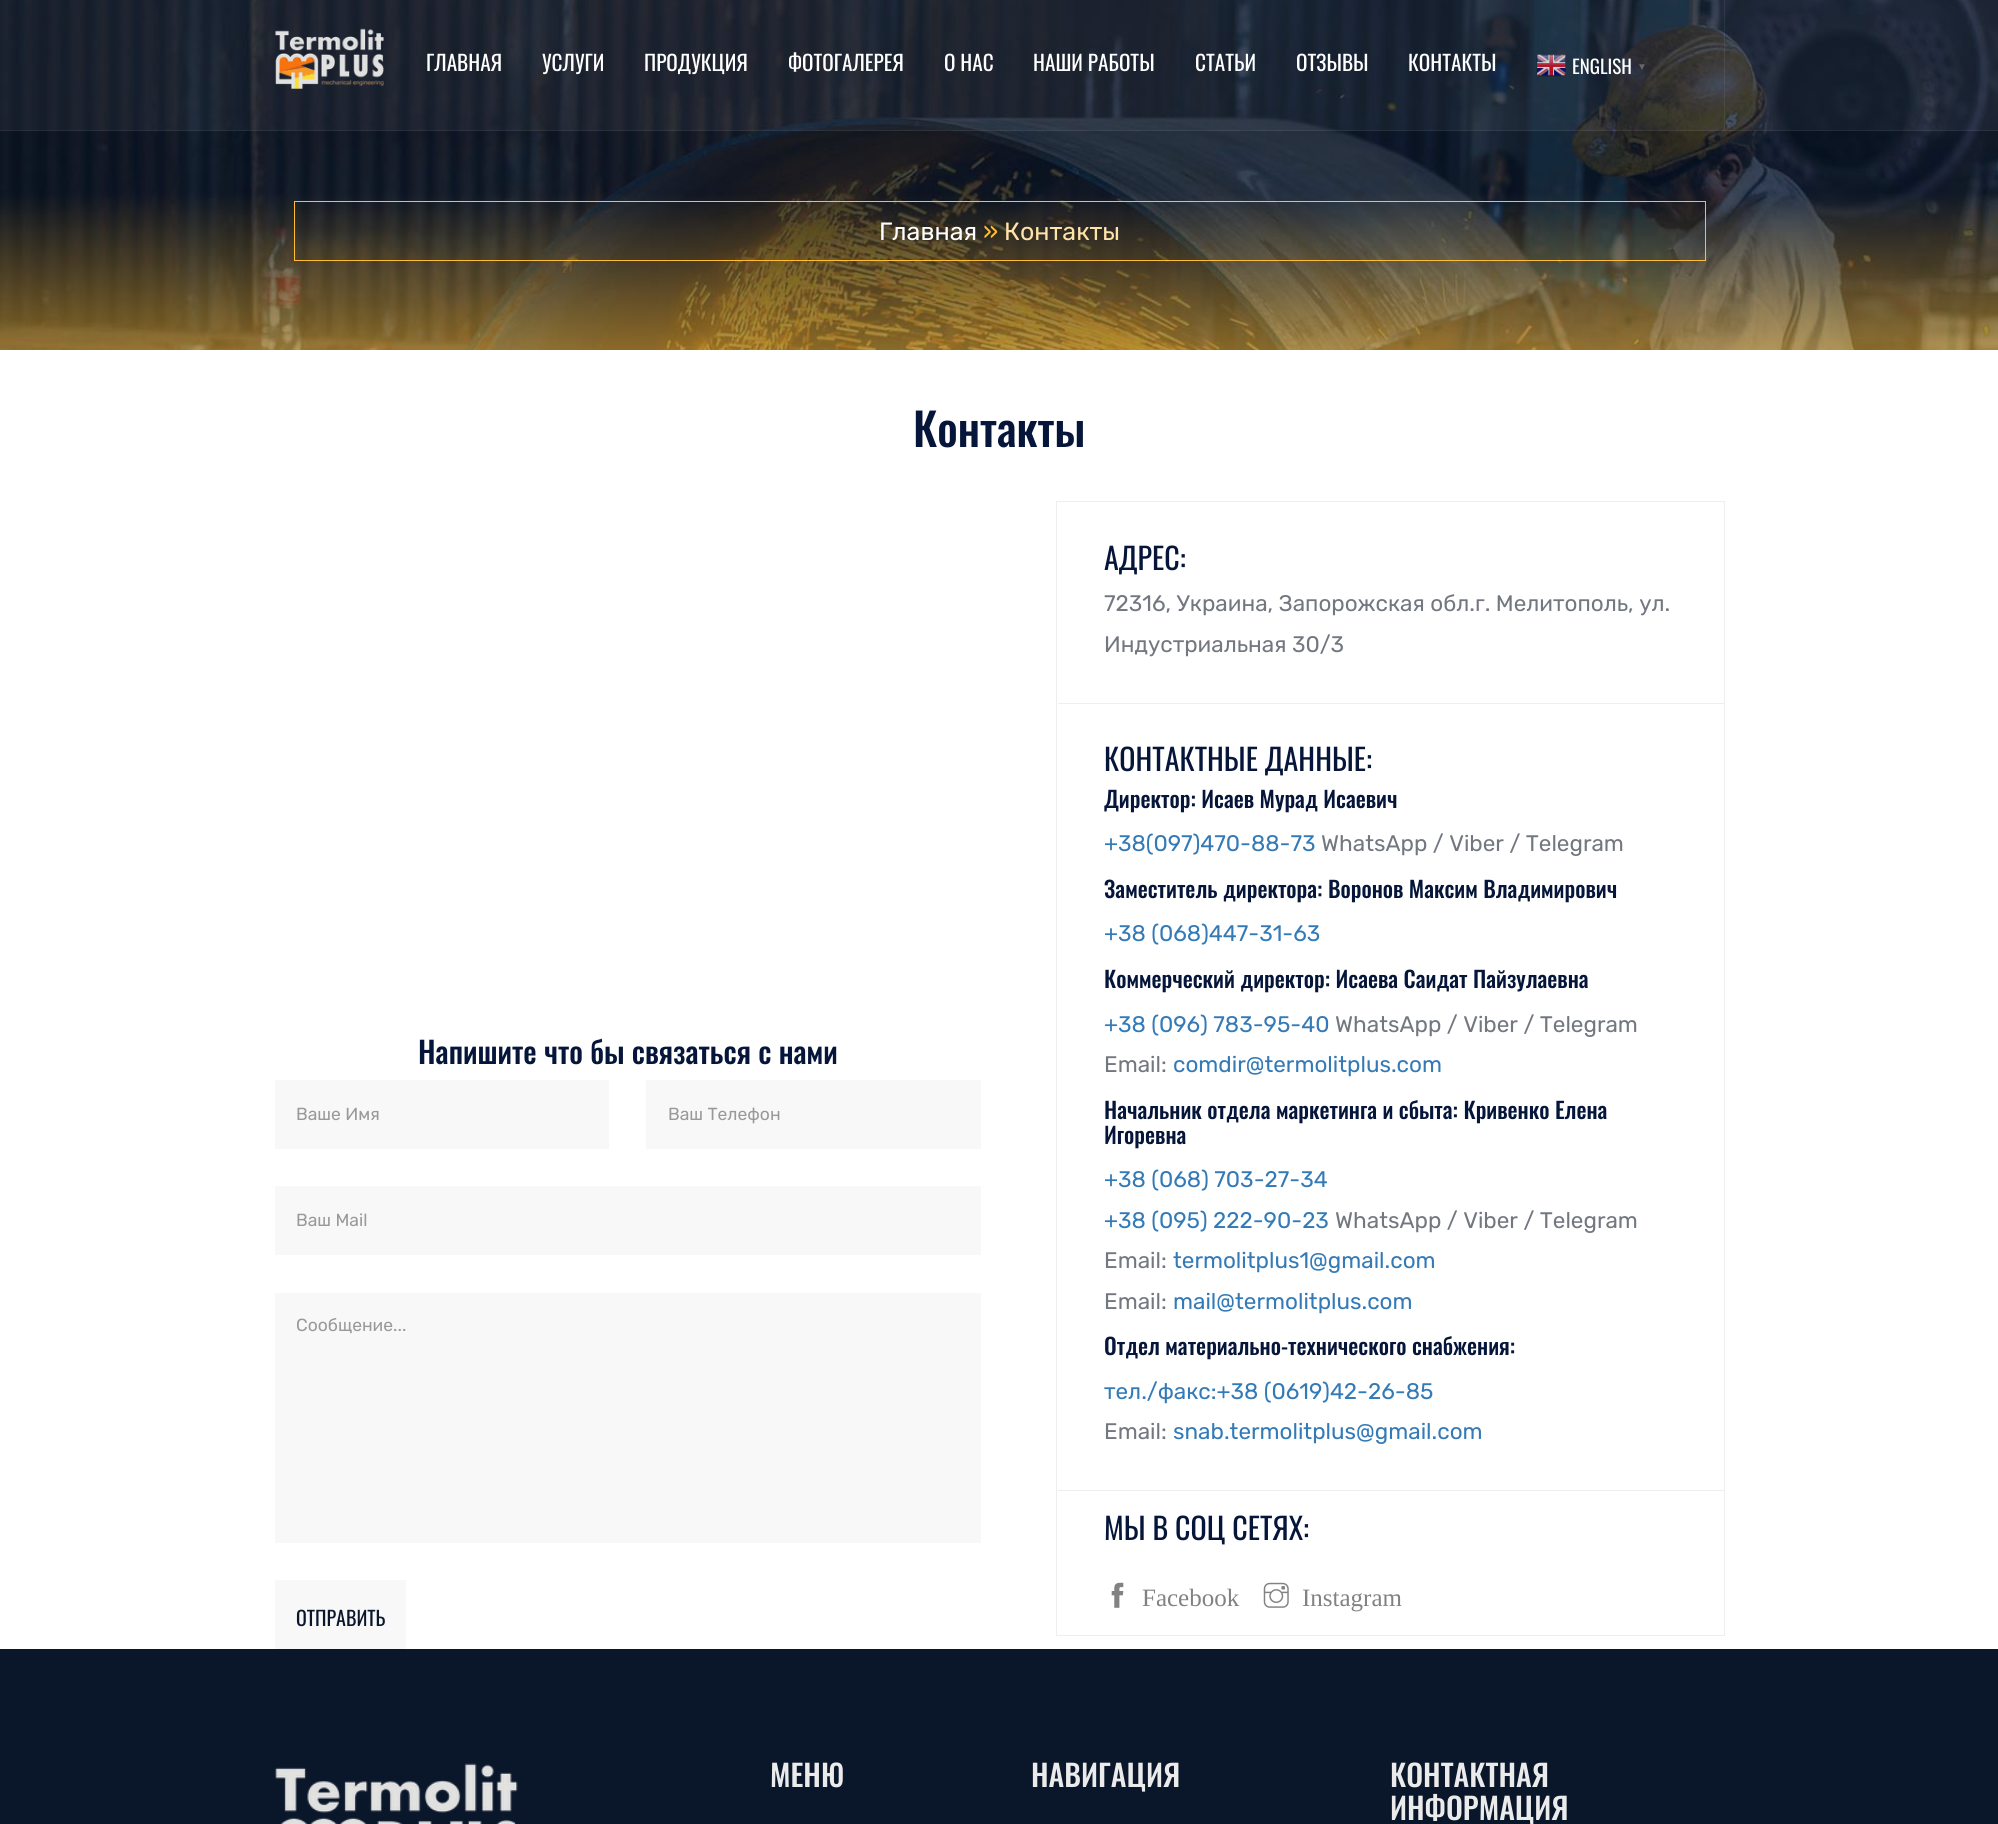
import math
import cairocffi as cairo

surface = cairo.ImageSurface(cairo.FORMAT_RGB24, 1998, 1824)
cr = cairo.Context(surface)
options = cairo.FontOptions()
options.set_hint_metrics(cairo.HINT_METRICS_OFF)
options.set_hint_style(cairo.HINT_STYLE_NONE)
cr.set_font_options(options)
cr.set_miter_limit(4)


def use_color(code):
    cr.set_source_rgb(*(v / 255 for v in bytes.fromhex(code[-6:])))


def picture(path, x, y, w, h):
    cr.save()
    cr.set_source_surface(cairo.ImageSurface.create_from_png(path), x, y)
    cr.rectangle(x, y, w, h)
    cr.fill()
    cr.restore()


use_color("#ffffff")
cr.paint()
picture("img3.png", 0, 0, 1998, 350)
cr.set_source_rgba(1, 1, 1, 0.05)
cr.rectangle(0, 0, 1998, 131)
cr.fill()
cr.set_source_rgba(1, 1, 1, 0.07)
cr.rectangle(0, 130, 1998, 1)
cr.fill()
picture("img1.png", 275, 28, 109, 61)
cr.rectangle(1724, 0, 1, 130)
cr.fill()
cr.select_font_face("Oswald")
cr.set_font_size(21.25)
use_color("#ffffff")
cr.move_to(426, 71)
cr.show_text("ГЛАВНАЯ")
cr.move_to(542, 71)
cr.show_text("УСЛУГИ")
cr.move_to(644, 71)
cr.show_text("ПРОДУКЦИЯ")
cr.move_to(788, 71)
cr.show_text("ФОТОГАЛЕРЕЯ")
cr.move_to(944, 71)
cr.show_text("О НАС")
cr.move_to(1033, 71)
cr.show_text("НАШИ РАБОТЫ")
cr.move_to(1195, 71)
cr.show_text("СТАТЬИ")
cr.move_to(1296, 71)
cr.show_text("ОТЗЫВЫ")
cr.move_to(1408, 71)
cr.show_text("КОНТАКТЫ")
picture("img2.png", 1536, 54, 30, 23)
cr.set_font_size(19)
cr.move_to(1572, 74)
cr.show_text("ENGLISH")
cr.select_font_face("Liberation Sans", cairo.FONT_SLANT_NORMAL, cairo.FONT_WEIGHT_BOLD)
cr.set_font_size(10)
use_color("#666666")
cr.move_to(1637, 70)
cr.show_text("▼")
cr.rectangle(294.5, 201.5, 1411, 59)
use_color("#ffbd34")
cr.set_line_width(1)
cr.stroke()
cr.select_font_face("Rubik")
cr.set_font_size(25)
use_color("#ffffff")
cr.move_to(879, 240)
cr.show_text("Главная")
use_color("#ffbd34")
cr.move_to(983, 240)
cr.show_text("»")
use_color("#ffe3a8")
cr.move_to(1004, 240)
cr.show_text("Контакты")
cr.select_font_face("Oswald Medium")
cr.set_font_size(45)
use_color("#06163a")
cr.move_to(913, 447)
cr.show_text("Контакты")
cr.set_font_size(30)
cr.move_to(418, 1064)
cr.show_text("Напишите что бы связаться с нами")
use_color("#f8f8f8")
cr.rectangle(275, 1080, 334, 69)
cr.fill()
cr.select_font_face("Rubik")
cr.set_font_size(17.5)
use_color("#999999")
cr.move_to(296, 1120)
cr.show_text("Ваше Имя")
use_color("#f8f8f8")
cr.rectangle(646, 1080, 335, 69)
cr.fill()
use_color("#999999")
cr.move_to(668, 1120)
cr.show_text("Ваш Телефон")
use_color("#f8f8f8")
cr.rectangle(275, 1186, 706, 69)
cr.fill()
use_color("#999999")
cr.move_to(296, 1226)
cr.show_text("Ваш Mail")
use_color("#f8f8f8")
cr.rectangle(275, 1293, 706, 250)
cr.fill()
use_color("#999999")
cr.move_to(296, 1331)
cr.show_text("Сообщение...")
use_color("#f8f8f8")
cr.rectangle(275, 1580, 131, 69)
cr.fill()
cr.select_font_face("Oswald")
cr.set_font_size(20)
use_color("#0a172b")
cr.move_to(296, 1626)
cr.show_text("ОТПРАВИТЬ")
cr.rectangle(1056.5, 501.5, 668, 1134)
use_color("#efeeee")
cr.stroke()
cr.set_font_size(30)
use_color("#06163a")
cr.move_to(1104, 570)
cr.show_text("АДРЕС:")
cr.select_font_face("Rubik")
cr.set_font_size(22.5)
use_color("#727780")
cr.move_to(1104, 611)
cr.show_text("72316, Украина, Запорожская обл.г. Мелитополь, ул.")
cr.move_to(1104, 652)
cr.show_text("Индустриальная 30/3")
use_color("#efeeee")
cr.rectangle(1058, 703, 666, 1)
cr.fill()
cr.select_font_face("Oswald")
cr.set_font_size(30)
use_color("#06163a")
cr.move_to(1104, 771)
cr.show_text("КОНТАКТНЫЕ ДАННЫЕ:")
cr.select_font_face("Oswald Medium")
cr.set_font_size(22.5)
cr.move_to(1104, 808)
cr.show_text("Директор: Исаев Мурад Исаевич")
cr.select_font_face("Rubik")
use_color("#337ab7")
cr.move_to(1104, 851)
cr.show_text("+38(097)470-88-73")
use_color("#727780")
cr.move_to(1321, 851)
cr.show_text("WhatsApp / Viber / Telegram")
cr.select_font_face("Oswald Medium")
use_color("#06163a")
cr.move_to(1104, 898)
cr.show_text("Заместитель директора: Воронов Максим Владимирович")
cr.select_font_face("Rubik")
use_color("#337ab7")
cr.move_to(1104, 941)
cr.show_text("+38 (068)447-31-63")
cr.select_font_face("Oswald Medium")
use_color("#06163a")
cr.move_to(1104, 988)
cr.show_text("Коммерческий директор: Исаева Саидат Пайзулаевна")
cr.select_font_face("Rubik")
use_color("#337ab7")
cr.move_to(1104, 1032)
cr.show_text("+38 (096) 783-95-40")
use_color("#727780")
cr.move_to(1335, 1032)
cr.show_text("WhatsApp / Viber / Telegram")
cr.move_to(1104, 1072)
cr.show_text("Email:")
use_color("#337ab7")
cr.move_to(1173, 1072)
cr.show_text("comdir@termolitplus.com")
cr.select_font_face("Oswald Medium")
use_color("#06163a")
cr.move_to(1104, 1119)
cr.show_text("Начальник отдела маркетинга и сбыта: Кривенко Елена")
cr.move_to(1104, 1144)
cr.show_text("Игоревна")
cr.select_font_face("Rubik")
use_color("#337ab7")
cr.move_to(1104, 1187)
cr.show_text("+38 (068) 703-27-34")
cr.move_to(1104, 1228)
cr.show_text("+38 (095) 222-90-23")
use_color("#727780")
cr.move_to(1335, 1228)
cr.show_text("WhatsApp / Viber / Telegram")
cr.move_to(1104, 1268)
cr.show_text("Email:")
use_color("#337ab7")
cr.move_to(1173, 1268)
cr.show_text("termolitplus1@gmail.com")
use_color("#727780")
cr.move_to(1104, 1309)
cr.show_text("Email:")
use_color("#337ab7")
cr.move_to(1173, 1309)
cr.show_text("mail@termolitplus.com")
cr.select_font_face("Oswald Medium")
use_color("#06163a")
cr.move_to(1104, 1355)
cr.show_text("Отдел материально-технического снабжения:")
cr.select_font_face("Rubik")
use_color("#337ab7")
cr.move_to(1104, 1399)
cr.show_text("тел./факс:+38 (0619)42-26-85")
use_color("#727780")
cr.move_to(1104, 1439)
cr.show_text("Email:")
use_color("#337ab7")
cr.move_to(1173, 1439)
cr.show_text("snab.termolitplus@gmail.com")
use_color("#efeeee")
cr.rectangle(1058, 1490, 666, 1)
cr.fill()
cr.select_font_face("Oswald")
cr.set_font_size(30)
use_color("#06163a")
cr.move_to(1104, 1540)
cr.show_text("МЫ В СОЦ СЕТЯХ:")
picture("img4.png", 1111, 1582, 13, 26)
cr.select_font_face("Liberation Serif")
cr.set_font_size(25)
use_color("#828282")
cr.move_to(1142, 1606)
cr.show_text("Facebook")
picture("img5.png", 1263, 1582, 26, 26)
cr.move_to(1302, 1606)
cr.show_text("Instagram")
use_color("#0a172b")
cr.rectangle(0, 1649, 1998, 175)
cr.fill()
picture("img6.png", 275, 1763, 243, 61)
cr.select_font_face("Oswald Medium")
cr.set_font_size(30)
use_color("#ebebeb")
cr.move_to(770, 1787)
cr.show_text("МЕНЮ")
cr.move_to(1031, 1787)
cr.show_text("НАВИГАЦИЯ")
cr.move_to(1390, 1787)
cr.show_text("КОНТАКТНАЯ")
cr.move_to(1390, 1820)
cr.show_text("ИНФОРМАЦИЯ")
surface.write_to_png("result.png")
